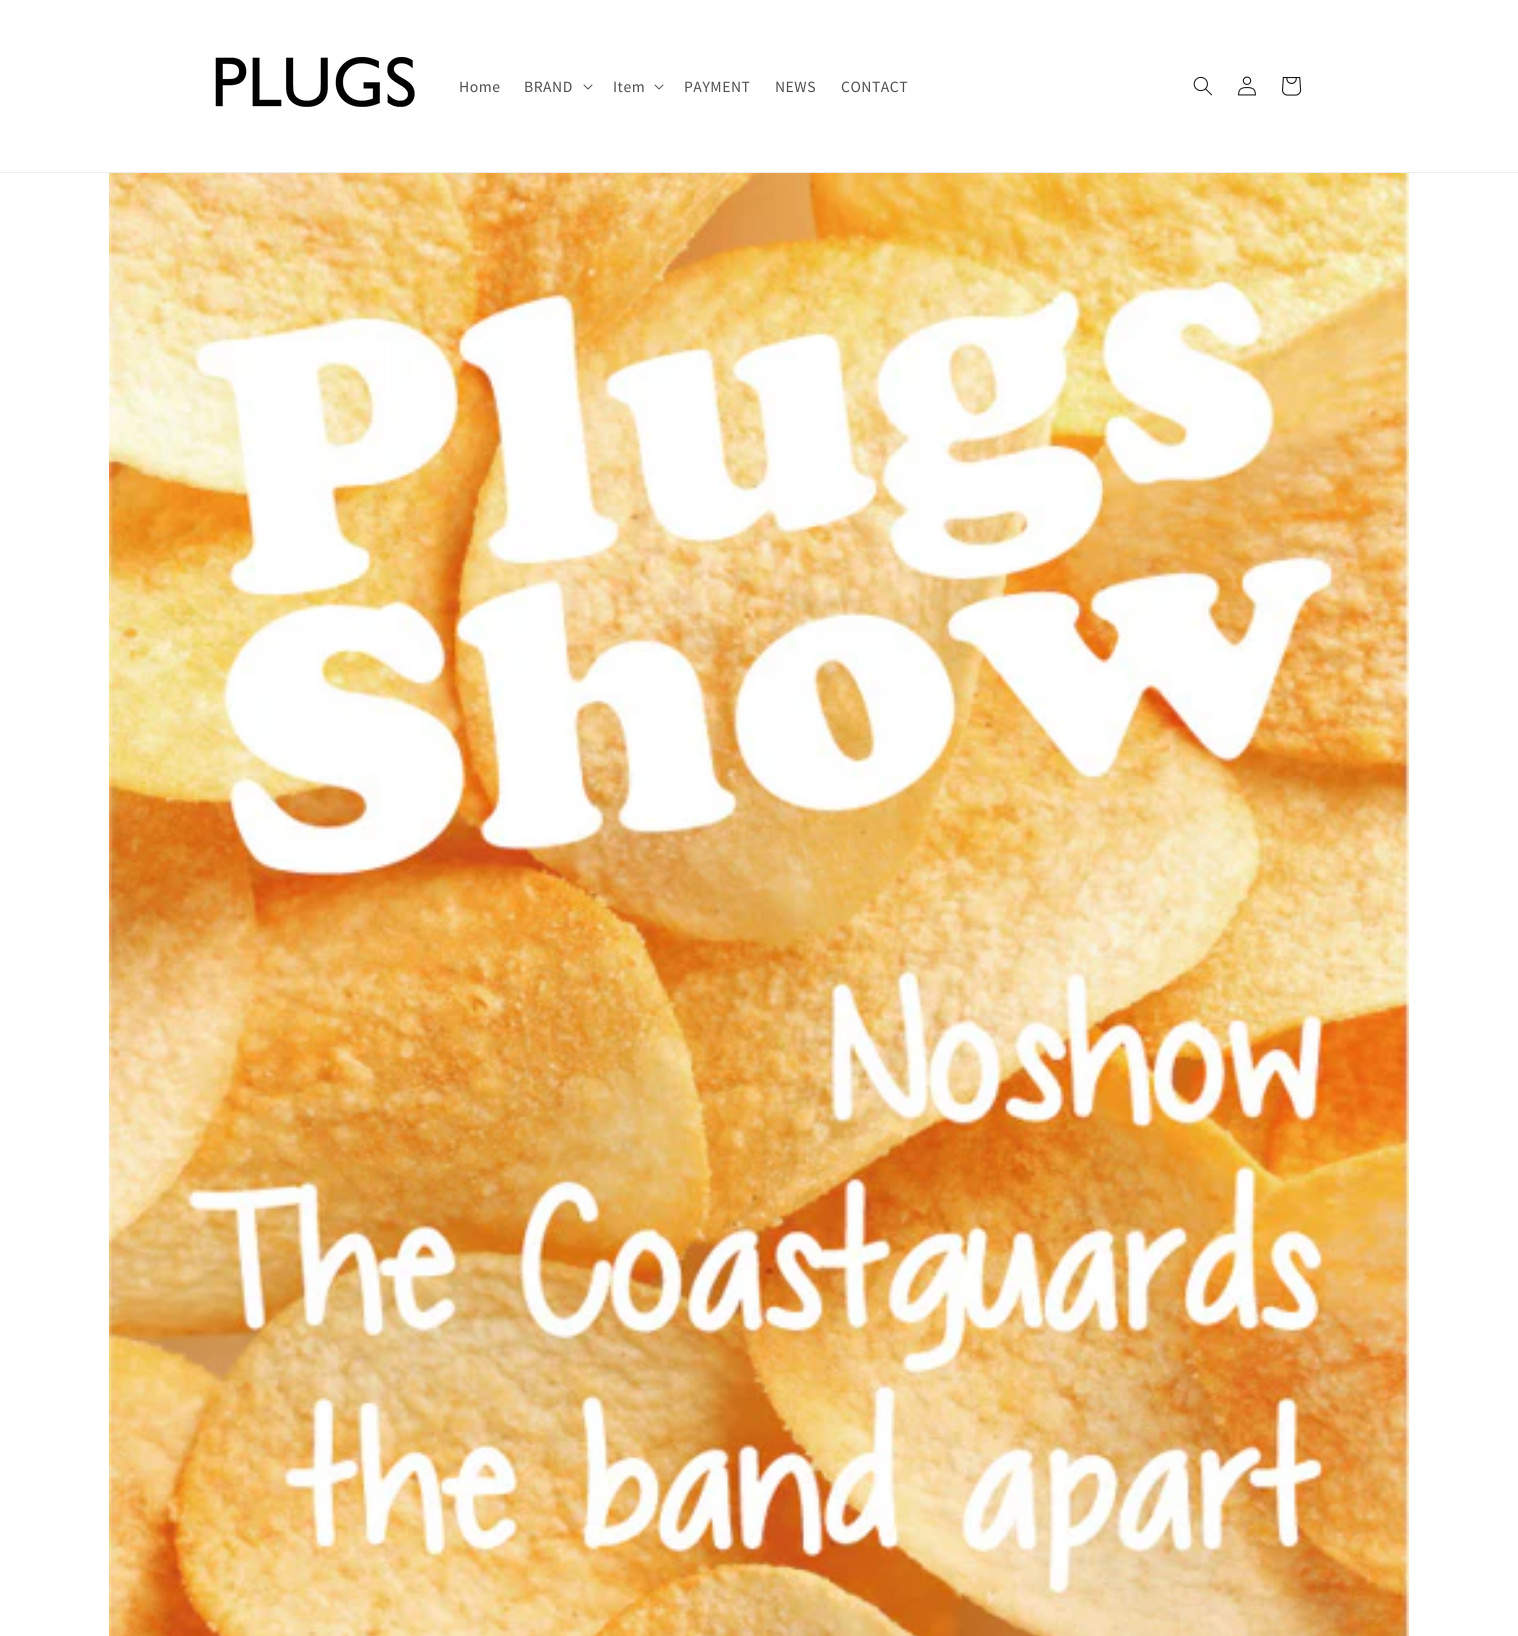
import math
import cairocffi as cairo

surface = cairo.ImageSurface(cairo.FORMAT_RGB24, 1518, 1636)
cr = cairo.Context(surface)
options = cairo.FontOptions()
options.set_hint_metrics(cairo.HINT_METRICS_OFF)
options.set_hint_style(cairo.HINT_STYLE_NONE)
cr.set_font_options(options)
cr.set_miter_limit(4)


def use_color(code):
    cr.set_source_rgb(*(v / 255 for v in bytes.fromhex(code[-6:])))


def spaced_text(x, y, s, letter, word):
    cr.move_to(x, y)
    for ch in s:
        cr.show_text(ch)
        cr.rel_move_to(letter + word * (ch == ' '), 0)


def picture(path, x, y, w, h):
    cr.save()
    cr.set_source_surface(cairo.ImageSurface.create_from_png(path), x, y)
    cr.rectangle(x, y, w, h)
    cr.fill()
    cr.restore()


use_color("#ffffff")
cr.paint()
use_color("#ececec")
cr.rectangle(0, 172, 1518, 1)
cr.fill()
picture("img1.png", 215, 56, 200, 51)
cr.select_font_face("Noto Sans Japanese")
cr.set_font_size(14)
use_color("#4d4d4d")
spaced_text(459, 92, "Home", 0.5, 0)
spaced_text(524, 92, "BRAND", 0.5, 0)
picture("img2.png", 583, 84, 10, 6)
spaced_text(613, 92, "Item", 0.5, 0)
picture("img2.png", 654, 84, 10, 6)
spaced_text(684, 92, "PAYMENT", 0.5, 0)
spaced_text(775, 92, "NEWS", 0.5, 0)
spaced_text(841, 92, "CONTACT", 0.5, 0)
picture("img3.png", 1193, 76, 19, 20)
picture("img4.png", 1238, 76, 18, 20)
picture("img5.png", 1282, 77, 20, 19)
picture("img6.png", 109, 173, 1300, 1463)
surface.write_to_png("result.png")
